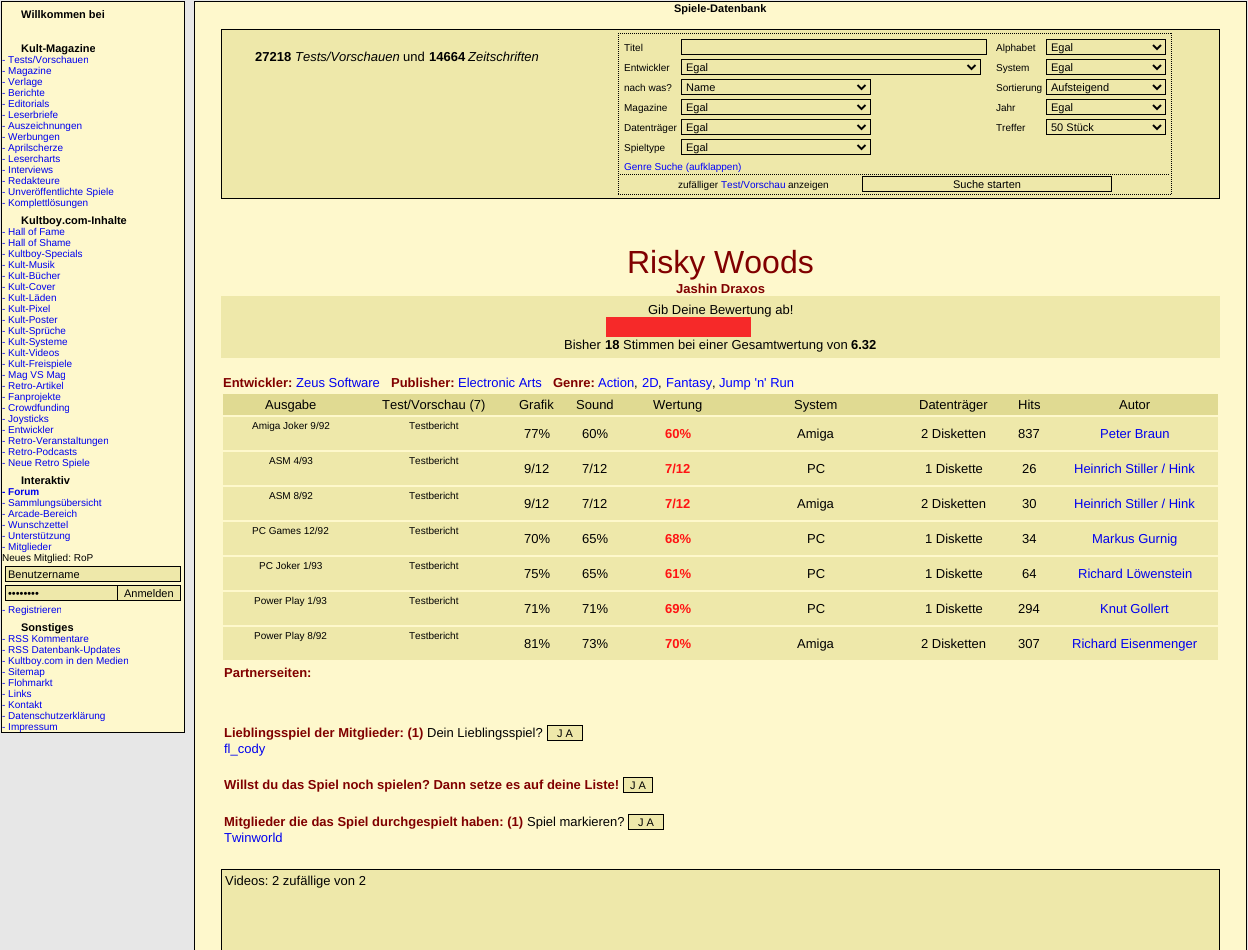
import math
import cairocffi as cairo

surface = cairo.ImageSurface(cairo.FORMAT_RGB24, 1248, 950)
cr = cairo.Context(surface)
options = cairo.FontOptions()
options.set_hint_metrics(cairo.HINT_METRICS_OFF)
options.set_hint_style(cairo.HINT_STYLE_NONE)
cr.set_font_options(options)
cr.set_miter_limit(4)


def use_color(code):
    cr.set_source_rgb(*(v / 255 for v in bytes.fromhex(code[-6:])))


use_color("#e7e7e7")
cr.paint()
use_color("#fef8cc")
cr.rectangle(1.5, 1.5, 183, 731)
cr.fill_preserve()
use_color("#000000")
cr.set_line_width(1)
cr.stroke()
cr.select_font_face("Liberation Sans", cairo.FONT_SLANT_NORMAL, cairo.FONT_WEIGHT_BOLD)
cr.set_font_size(11)
cr.move_to(21, 18)
cr.show_text("Willkommen bei")
cr.move_to(21, 52)
cr.show_text("Kult-Magazine")
cr.select_font_face("Liberation Sans")
cr.set_font_size(10)
use_color("#0000ee")
cr.move_to(2, 63)
cr.show_text("- Tests/Vorschauen")
cr.move_to(2, 74)
cr.show_text("- Magazine")
cr.move_to(2, 85)
cr.show_text("- Verlage")
cr.move_to(2, 96)
cr.show_text("- Berichte")
cr.move_to(2, 107)
cr.show_text("- Editorials")
cr.move_to(2, 118)
cr.show_text("- Leserbriefe")
cr.move_to(2, 129)
cr.show_text("- Auszeichnungen")
cr.move_to(2, 140)
cr.show_text("- Werbungen")
cr.move_to(2, 151)
cr.show_text("- Aprilscherze")
cr.move_to(2, 162)
cr.show_text("- Lesercharts")
cr.move_to(2, 173)
cr.show_text("- Interviews")
cr.move_to(2, 184)
cr.show_text("- Redakteure")
cr.move_to(2, 195)
cr.show_text("- Unveröffentlichte Spiele")
cr.move_to(2, 206)
cr.show_text("- Komplettlösungen")
cr.select_font_face("Liberation Sans", cairo.FONT_SLANT_NORMAL, cairo.FONT_WEIGHT_BOLD)
cr.set_font_size(11)
use_color("#000000")
cr.move_to(21, 224)
cr.show_text("Kultboy.com-Inhalte")
cr.select_font_face("Liberation Sans")
cr.set_font_size(10)
use_color("#0000ee")
cr.move_to(2, 235)
cr.show_text("- Hall of Fame")
cr.move_to(2, 246)
cr.show_text("- Hall of Shame")
cr.move_to(2, 257)
cr.show_text("- Kultboy-Specials")
cr.move_to(2, 268)
cr.show_text("- Kult-Musik")
cr.move_to(2, 279)
cr.show_text("- Kult-Bücher")
cr.move_to(2, 290)
cr.show_text("- Kult-Cover")
cr.move_to(2, 301)
cr.show_text("- Kult-Läden")
cr.move_to(2, 312)
cr.show_text("- Kult-Pixel")
cr.move_to(2, 323)
cr.show_text("- Kult-Poster")
cr.move_to(2, 334)
cr.show_text("- Kult-Sprüche")
cr.move_to(2, 345)
cr.show_text("- Kult-Systeme")
cr.move_to(2, 356)
cr.show_text("- Kult-Videos")
cr.move_to(2, 367)
cr.show_text("- Kult-Freispiele")
cr.move_to(2, 378)
cr.show_text("- Mag VS Mag")
cr.move_to(2, 389)
cr.show_text("- Retro-Artikel")
cr.move_to(2, 400)
cr.show_text("- Fanprojekte")
cr.move_to(2, 411)
cr.show_text("- Crowdfunding")
cr.move_to(2, 422)
cr.show_text("- Joysticks")
cr.move_to(2, 433)
cr.show_text("- Entwickler")
cr.move_to(2, 444)
cr.show_text("- Retro-Veranstaltungen")
cr.move_to(2, 455)
cr.show_text("- Retro-Podcasts")
cr.move_to(2, 466)
cr.show_text("- Neue Retro Spiele")
cr.select_font_face("Liberation Sans", cairo.FONT_SLANT_NORMAL, cairo.FONT_WEIGHT_BOLD)
cr.set_font_size(11)
use_color("#000000")
cr.move_to(21, 484)
cr.show_text("Interaktiv")
cr.set_font_size(10)
use_color("#0000ee")
cr.move_to(2, 495)
cr.show_text("- Forum")
cr.select_font_face("Liberation Sans")
cr.move_to(2, 506)
cr.show_text("- Sammlungsübersicht")
cr.move_to(2, 517)
cr.show_text("- Arcade-Bereich")
cr.move_to(2, 528)
cr.show_text("- Wunschzettel")
cr.move_to(2, 539)
cr.show_text("- Unterstützung")
cr.move_to(2, 550)
cr.show_text("- Mitglieder")
use_color("#000000")
cr.move_to(2, 561)
cr.show_text("Neues Mitglied: RoP")
use_color("#eee8aa")
cr.rectangle(5.5, 566.5, 175, 15)
cr.fill_preserve()
use_color("#000000")
cr.stroke()
cr.set_font_size(11)
cr.move_to(8, 578)
cr.show_text("Benutzername")
use_color("#eee8aa")
cr.rectangle(6, 586, 111, 14)
cr.fill()
cr.rectangle(5.5, 585.5, 114, 15)
use_color("#000000")
cr.stroke()
cr.move_to(8, 597)
cr.show_text("••••••••")
use_color("#eee8aa")
cr.rectangle(117.5, 585.5, 63, 15)
cr.fill_preserve()
use_color("#000000")
cr.stroke()
cr.move_to(124, 597)
cr.show_text("Anmelden")
cr.set_font_size(10)
use_color("#0000ee")
cr.move_to(2, 613)
cr.show_text("- Registrieren")
cr.select_font_face("Liberation Sans", cairo.FONT_SLANT_NORMAL, cairo.FONT_WEIGHT_BOLD)
cr.set_font_size(11)
use_color("#000000")
cr.move_to(21, 631)
cr.show_text("Sonstiges")
cr.select_font_face("Liberation Sans")
cr.set_font_size(10)
use_color("#0000ee")
cr.move_to(2, 642)
cr.show_text("- RSS Kommentare")
cr.move_to(2, 653)
cr.show_text("- RSS Datenbank-Updates")
cr.move_to(2, 664)
cr.show_text("- Kultboy.com in den Medien")
cr.move_to(2, 675)
cr.show_text("- Sitemap")
cr.move_to(2, 686)
cr.show_text("- Flohmarkt")
cr.move_to(2, 697)
cr.show_text("- Links")
cr.move_to(2, 708)
cr.show_text("- Kontakt")
cr.move_to(2, 719)
cr.show_text("- Datenschutzerklärung")
cr.move_to(2, 730)
cr.show_text("- Impressum")
cr.rectangle(194.5, 1.5, 1052, 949)
use_color("#000000")
cr.stroke()
use_color("#fef8cc")
cr.rectangle(195, 2, 1051, 948)
cr.fill()
cr.select_font_face("Liberation Sans", cairo.FONT_SLANT_NORMAL, cairo.FONT_WEIGHT_BOLD)
cr.set_font_size(11)
use_color("#000000")
cr.move_to(674, 12)
cr.show_text("Spiele-Datenbank")
use_color("#eee8aa")
cr.rectangle(221.5, 29.5, 998, 169)
cr.fill_preserve()
use_color("#000000")
cr.stroke()
cr.set_font_size(13)
cr.move_to(255, 61)
cr.show_text("27218")
cr.select_font_face("Liberation Sans", cairo.FONT_SLANT_ITALIC)
cr.move_to(295, 61)
cr.show_text("Tests/Vorschauen")
cr.select_font_face("Liberation Sans")
cr.move_to(403, 61)
cr.show_text("und")
cr.select_font_face("Liberation Sans", cairo.FONT_SLANT_NORMAL, cairo.FONT_WEIGHT_BOLD)
cr.move_to(429, 61)
cr.show_text("14664")
cr.select_font_face("Liberation Sans", cairo.FONT_SLANT_ITALIC)
cr.move_to(468, 61)
cr.show_text("Zeitschriften")
cr.new_path()
cr.move_to(618, 33.5)
cr.line_to(1172, 33.5)
cr.set_dash([1, 1])
cr.stroke()
cr.new_path()
cr.move_to(1171.5, 33)
cr.line_to(1171.5, 195)
cr.stroke()
cr.new_path()
cr.move_to(618, 194.5)
cr.line_to(1172, 194.5)
cr.stroke()
cr.new_path()
cr.move_to(618.5, 33)
cr.line_to(618.5, 195)
cr.stroke()
cr.select_font_face("Liberation Sans")
cr.set_font_size(10)
cr.move_to(624, 51)
cr.show_text("Titel")
cr.rectangle(681.5, 39.5, 305, 15)
cr.set_dash([])
cr.stroke()
cr.move_to(624, 71)
cr.show_text("Entwickler")
cr.rectangle(681.5, 59.5, 299, 15)
cr.stroke()
cr.new_path()
cr.move_to(967.5, 65)
cr.line_to(971.5, 69)
cr.line_to(975.5, 65)
cr.set_line_width(2)
cr.stroke()
cr.set_font_size(11)
cr.move_to(686, 71)
cr.show_text("Egal")
cr.set_font_size(10)
cr.move_to(624, 91)
cr.show_text("nach was?")
cr.rectangle(681.5, 79.5, 189, 15)
cr.set_line_width(1)
cr.stroke()
cr.new_path()
cr.move_to(857.5, 85)
cr.line_to(861.5, 89)
cr.line_to(865.5, 85)
cr.set_line_width(2)
cr.stroke()
cr.set_font_size(11)
cr.move_to(686, 91)
cr.show_text("Name")
cr.set_font_size(10)
cr.move_to(624, 111)
cr.show_text("Magazine")
cr.rectangle(681.5, 99.5, 189, 15)
cr.set_line_width(1)
cr.stroke()
cr.new_path()
cr.move_to(857.5, 105)
cr.line_to(861.5, 109)
cr.line_to(865.5, 105)
cr.set_line_width(2)
cr.stroke()
cr.set_font_size(11)
cr.move_to(686, 111)
cr.show_text("Egal")
cr.set_font_size(10)
cr.move_to(624, 131)
cr.show_text("Datenträger")
cr.rectangle(681.5, 119.5, 189, 15)
cr.set_line_width(1)
cr.stroke()
cr.new_path()
cr.move_to(857.5, 125)
cr.line_to(861.5, 129)
cr.line_to(865.5, 125)
cr.set_line_width(2)
cr.stroke()
cr.set_font_size(11)
cr.move_to(686, 131)
cr.show_text("Egal")
cr.set_font_size(10)
cr.move_to(624, 151)
cr.show_text("Spieltype")
cr.rectangle(681.5, 139.5, 189, 15)
cr.set_line_width(1)
cr.stroke()
cr.new_path()
cr.move_to(857.5, 145)
cr.line_to(861.5, 149)
cr.line_to(865.5, 145)
cr.set_line_width(2)
cr.stroke()
cr.set_font_size(11)
cr.move_to(686, 151)
cr.show_text("Egal")
cr.set_font_size(10)
cr.move_to(996, 51)
cr.show_text("Alphabet")
cr.rectangle(1046.5, 39.5, 119, 15)
cr.set_line_width(1)
cr.stroke()
cr.new_path()
cr.move_to(1153, 45)
cr.line_to(1157, 49)
cr.line_to(1161, 45)
cr.set_line_width(2)
cr.stroke()
cr.set_font_size(11)
cr.move_to(1051, 51)
cr.show_text("Egal")
cr.set_font_size(10)
cr.move_to(996, 71)
cr.show_text("System")
cr.rectangle(1046.5, 59.5, 119, 15)
cr.set_line_width(1)
cr.stroke()
cr.new_path()
cr.move_to(1153, 65)
cr.line_to(1157, 69)
cr.line_to(1161, 65)
cr.set_line_width(2)
cr.stroke()
cr.set_font_size(11)
cr.move_to(1051, 71)
cr.show_text("Egal")
cr.set_font_size(10)
cr.move_to(996, 91)
cr.show_text("Sortierung")
cr.rectangle(1046.5, 79.5, 119, 15)
cr.set_line_width(1)
cr.stroke()
cr.new_path()
cr.move_to(1153, 85)
cr.line_to(1157, 89)
cr.line_to(1161, 85)
cr.set_line_width(2)
cr.stroke()
cr.set_font_size(11)
cr.move_to(1051, 91)
cr.show_text("Aufsteigend")
cr.set_font_size(10)
cr.move_to(996, 111)
cr.show_text("Jahr")
cr.rectangle(1046.5, 99.5, 119, 15)
cr.set_line_width(1)
cr.stroke()
cr.new_path()
cr.move_to(1153, 105)
cr.line_to(1157, 109)
cr.line_to(1161, 105)
cr.set_line_width(2)
cr.stroke()
cr.set_font_size(11)
cr.move_to(1051, 111)
cr.show_text("Egal")
cr.set_font_size(10)
cr.move_to(996, 131)
cr.show_text("Treffer")
cr.rectangle(1046.5, 119.5, 119, 15)
cr.set_line_width(1)
cr.stroke()
cr.new_path()
cr.move_to(1153, 125)
cr.line_to(1157, 129)
cr.line_to(1161, 125)
cr.set_line_width(2)
cr.stroke()
cr.set_font_size(11)
cr.move_to(1051, 131)
cr.show_text("50 Stück")
cr.set_font_size(10)
use_color("#0000ff")
cr.move_to(624, 170)
cr.show_text("Genre Suche (aufklappen)")
cr.new_path()
cr.move_to(620, 174.5)
cr.line_to(1170, 174.5)
use_color("#000000")
cr.set_line_width(1)
cr.set_dash([1, 1])
cr.stroke()
cr.move_to(678, 188)
cr.show_text("zufälliger")
use_color("#0000ee")
cr.move_to(721, 188)
cr.show_text("Test/Vorschau")
use_color("#000000")
cr.move_to(788, 188)
cr.show_text("anzeigen")
cr.rectangle(862.5, 176.5, 249, 15)
cr.set_dash([])
cr.stroke()
cr.set_font_size(11)
cr.move_to(953, 188)
cr.show_text("Suche starten")
cr.set_font_size(32)
use_color("#800000")
cr.move_to(627, 273)
cr.show_text("Risky Woods")
cr.select_font_face("Liberation Sans", cairo.FONT_SLANT_NORMAL, cairo.FONT_WEIGHT_BOLD)
cr.set_font_size(13)
cr.move_to(676, 293)
cr.show_text("Jashin Draxos")
use_color("#eee8aa")
cr.rectangle(221, 296, 999, 62)
cr.fill()
cr.select_font_face("Liberation Sans")
use_color("#000000")
cr.move_to(648, 314)
cr.show_text("Gib Deine Bewertung ab!")
use_color("#f62929")
cr.rectangle(606, 317, 145, 20)
cr.fill()
use_color("#000000")
cr.move_to(564, 349)
cr.show_text("Bisher")
cr.select_font_face("Liberation Sans", cairo.FONT_SLANT_NORMAL, cairo.FONT_WEIGHT_BOLD)
cr.move_to(605, 349)
cr.show_text("18")
cr.select_font_face("Liberation Sans")
cr.move_to(623, 349)
cr.show_text("Stimmen bei einer Gesamtwertung von")
cr.select_font_face("Liberation Sans", cairo.FONT_SLANT_NORMAL, cairo.FONT_WEIGHT_BOLD)
cr.move_to(851, 349)
cr.show_text("6.32")
use_color("#800000")
cr.move_to(223, 387)
cr.show_text("Entwickler:")
cr.select_font_face("Liberation Sans")
use_color("#0000ee")
cr.move_to(296, 387)
cr.show_text("Zeus Software")
cr.select_font_face("Liberation Sans", cairo.FONT_SLANT_NORMAL, cairo.FONT_WEIGHT_BOLD)
use_color("#800000")
cr.move_to(391, 387)
cr.show_text("Publisher:")
cr.select_font_face("Liberation Sans")
use_color("#0000ee")
cr.move_to(458, 387)
cr.show_text("Electronic Arts")
cr.select_font_face("Liberation Sans", cairo.FONT_SLANT_NORMAL, cairo.FONT_WEIGHT_BOLD)
use_color("#800000")
cr.move_to(553, 387)
cr.show_text("Genre:")
cr.select_font_face("Liberation Sans")
use_color("#0000ff")
cr.move_to(598, 387)
cr.show_text("Action")
use_color("#000000")
cr.move_to(634, 387)
cr.show_text(",")
use_color("#0000ff")
cr.move_to(642, 387)
cr.show_text("2D")
use_color("#000000")
cr.move_to(658, 387)
cr.show_text(",")
use_color("#0000ff")
cr.move_to(666, 387)
cr.show_text("Fantasy")
use_color("#000000")
cr.move_to(712, 387)
cr.show_text(",")
use_color("#0000ff")
cr.move_to(719, 387)
cr.show_text("Jump 'n' Run")
use_color("#e0da92")
cr.rectangle(223, 394, 995, 21)
cr.fill()
use_color("#000000")
cr.move_to(265, 409)
cr.show_text("Ausgabe")
cr.move_to(382, 409)
cr.show_text("Test/Vorschau (7)")
cr.move_to(519, 409)
cr.show_text("Grafik")
cr.move_to(576, 409)
cr.show_text("Sound")
cr.move_to(653, 409)
cr.show_text("Wertung")
cr.move_to(794, 409)
cr.show_text("System")
cr.move_to(919, 409)
cr.show_text("Datenträger")
cr.move_to(1018, 409)
cr.show_text("Hits")
cr.move_to(1119, 409)
cr.show_text("Autor")
use_color("#eee8aa")
cr.rectangle(223, 417, 995, 33)
cr.fill()
cr.set_font_size(10)
use_color("#000000")
cr.move_to(252, 429)
cr.show_text("Amiga Joker 9/92")
cr.move_to(409, 429)
cr.show_text("Testbericht")
cr.set_font_size(13)
cr.move_to(524, 438)
cr.show_text("77%")
cr.move_to(582, 438)
cr.show_text("60%")
cr.select_font_face("Liberation Sans", cairo.FONT_SLANT_NORMAL, cairo.FONT_WEIGHT_BOLD)
use_color("#ff1313")
cr.move_to(665, 438)
cr.show_text("60%")
cr.select_font_face("Liberation Sans")
use_color("#000000")
cr.move_to(797, 438)
cr.show_text("Amiga")
cr.move_to(921, 438)
cr.show_text("2 Disketten")
cr.move_to(1018, 438)
cr.show_text("837")
use_color("#0000ee")
cr.move_to(1100, 438)
cr.show_text("Peter Braun")
use_color("#eee8aa")
cr.rectangle(223, 452, 995, 33)
cr.fill()
cr.set_font_size(10)
use_color("#000000")
cr.move_to(269, 464)
cr.show_text("ASM 4/93")
cr.move_to(409, 464)
cr.show_text("Testbericht")
cr.set_font_size(13)
cr.move_to(524, 473)
cr.show_text("9/12")
cr.move_to(582, 473)
cr.show_text("7/12")
cr.select_font_face("Liberation Sans", cairo.FONT_SLANT_NORMAL, cairo.FONT_WEIGHT_BOLD)
use_color("#ff1313")
cr.move_to(665, 473)
cr.show_text("7/12")
cr.select_font_face("Liberation Sans")
use_color("#000000")
cr.move_to(807, 473)
cr.show_text("PC")
cr.move_to(925, 473)
cr.show_text("1 Diskette")
cr.move_to(1022, 473)
cr.show_text("26")
use_color("#0000ee")
cr.move_to(1074, 473)
cr.show_text("Heinrich Stiller / Hink")
use_color("#eee8aa")
cr.rectangle(223, 487, 995, 33)
cr.fill()
cr.set_font_size(10)
use_color("#000000")
cr.move_to(269, 499)
cr.show_text("ASM 8/92")
cr.move_to(409, 499)
cr.show_text("Testbericht")
cr.set_font_size(13)
cr.move_to(524, 508)
cr.show_text("9/12")
cr.move_to(582, 508)
cr.show_text("7/12")
cr.select_font_face("Liberation Sans", cairo.FONT_SLANT_NORMAL, cairo.FONT_WEIGHT_BOLD)
use_color("#ff1313")
cr.move_to(665, 508)
cr.show_text("7/12")
cr.select_font_face("Liberation Sans")
use_color("#000000")
cr.move_to(797, 508)
cr.show_text("Amiga")
cr.move_to(921, 508)
cr.show_text("2 Disketten")
cr.move_to(1022, 508)
cr.show_text("30")
use_color("#0000ee")
cr.move_to(1074, 508)
cr.show_text("Heinrich Stiller / Hink")
use_color("#eee8aa")
cr.rectangle(223, 522, 995, 33)
cr.fill()
cr.set_font_size(10)
use_color("#000000")
cr.move_to(252, 534)
cr.show_text("PC Games 12/92")
cr.move_to(409, 534)
cr.show_text("Testbericht")
cr.set_font_size(13)
cr.move_to(524, 543)
cr.show_text("70%")
cr.move_to(582, 543)
cr.show_text("65%")
cr.select_font_face("Liberation Sans", cairo.FONT_SLANT_NORMAL, cairo.FONT_WEIGHT_BOLD)
use_color("#ff1313")
cr.move_to(665, 543)
cr.show_text("68%")
cr.select_font_face("Liberation Sans")
use_color("#000000")
cr.move_to(807, 543)
cr.show_text("PC")
cr.move_to(925, 543)
cr.show_text("1 Diskette")
cr.move_to(1022, 543)
cr.show_text("34")
use_color("#0000ee")
cr.move_to(1092, 543)
cr.show_text("Markus Gurnig")
use_color("#eee8aa")
cr.rectangle(223, 557, 995, 33)
cr.fill()
cr.set_font_size(10)
use_color("#000000")
cr.move_to(259, 569)
cr.show_text("PC Joker 1/93")
cr.move_to(409, 569)
cr.show_text("Testbericht")
cr.set_font_size(13)
cr.move_to(524, 578)
cr.show_text("75%")
cr.move_to(582, 578)
cr.show_text("65%")
cr.select_font_face("Liberation Sans", cairo.FONT_SLANT_NORMAL, cairo.FONT_WEIGHT_BOLD)
use_color("#ff1313")
cr.move_to(665, 578)
cr.show_text("61%")
cr.select_font_face("Liberation Sans")
use_color("#000000")
cr.move_to(807, 578)
cr.show_text("PC")
cr.move_to(925, 578)
cr.show_text("1 Diskette")
cr.move_to(1022, 578)
cr.show_text("64")
use_color("#0000ee")
cr.move_to(1078, 578)
cr.show_text("Richard Löwenstein")
use_color("#eee8aa")
cr.rectangle(223, 592, 995, 33)
cr.fill()
cr.set_font_size(10)
use_color("#000000")
cr.move_to(254, 604)
cr.show_text("Power Play 1/93")
cr.move_to(409, 604)
cr.show_text("Testbericht")
cr.set_font_size(13)
cr.move_to(524, 613)
cr.show_text("71%")
cr.move_to(582, 613)
cr.show_text("71%")
cr.select_font_face("Liberation Sans", cairo.FONT_SLANT_NORMAL, cairo.FONT_WEIGHT_BOLD)
use_color("#ff1313")
cr.move_to(665, 613)
cr.show_text("69%")
cr.select_font_face("Liberation Sans")
use_color("#000000")
cr.move_to(807, 613)
cr.show_text("PC")
cr.move_to(925, 613)
cr.show_text("1 Diskette")
cr.move_to(1018, 613)
cr.show_text("294")
use_color("#0000ee")
cr.move_to(1100, 613)
cr.show_text("Knut Gollert")
use_color("#eee8aa")
cr.rectangle(223, 627, 995, 33)
cr.fill()
cr.set_font_size(10)
use_color("#000000")
cr.move_to(254, 639)
cr.show_text("Power Play 8/92")
cr.move_to(409, 639)
cr.show_text("Testbericht")
cr.set_font_size(13)
cr.move_to(524, 648)
cr.show_text("81%")
cr.move_to(582, 648)
cr.show_text("73%")
cr.select_font_face("Liberation Sans", cairo.FONT_SLANT_NORMAL, cairo.FONT_WEIGHT_BOLD)
use_color("#ff1313")
cr.move_to(665, 648)
cr.show_text("70%")
cr.select_font_face("Liberation Sans")
use_color("#000000")
cr.move_to(797, 648)
cr.show_text("Amiga")
cr.move_to(921, 648)
cr.show_text("2 Disketten")
cr.move_to(1018, 648)
cr.show_text("307")
use_color("#0000ee")
cr.move_to(1072, 648)
cr.show_text("Richard Eisenmenger")
cr.select_font_face("Liberation Sans", cairo.FONT_SLANT_NORMAL, cairo.FONT_WEIGHT_BOLD)
use_color("#800000")
cr.move_to(224, 677)
cr.show_text("Partnerseiten:")
cr.move_to(224, 737)
cr.show_text("Lieblingsspiel der Mitglieder: (1)")
cr.select_font_face("Liberation Sans")
use_color("#000000")
cr.move_to(427, 737)
cr.show_text("Dein Lieblingsspiel?")
use_color("#eee8aa")
cr.rectangle(547.5, 725.5, 35, 15)
cr.fill_preserve()
use_color("#000000")
cr.stroke()
cr.set_font_size(11)
cr.move_to(557, 737)
cr.show_text("J A")
cr.set_font_size(13)
use_color("#0000ee")
cr.move_to(224, 753)
cr.show_text("fl_cody")
cr.select_font_face("Liberation Sans", cairo.FONT_SLANT_NORMAL, cairo.FONT_WEIGHT_BOLD)
use_color("#800000")
cr.move_to(224, 789)
cr.show_text("Willst du das Spiel noch spielen? Dann setze es auf deine Liste!")
use_color("#eee8aa")
cr.rectangle(623.5, 777.5, 29, 15)
cr.fill_preserve()
use_color("#000000")
cr.stroke()
cr.select_font_face("Liberation Sans")
cr.set_font_size(11)
cr.move_to(630, 789)
cr.show_text("J A")
cr.select_font_face("Liberation Sans", cairo.FONT_SLANT_NORMAL, cairo.FONT_WEIGHT_BOLD)
cr.set_font_size(13)
use_color("#800000")
cr.move_to(224, 826)
cr.show_text("Mitglieder die das Spiel durchgespielt haben: (1)")
cr.select_font_face("Liberation Sans")
use_color("#000000")
cr.move_to(527, 826)
cr.show_text("Spiel markieren?")
use_color("#eee8aa")
cr.rectangle(628.5, 814.5, 35, 15)
cr.fill_preserve()
use_color("#000000")
cr.stroke()
cr.set_font_size(11)
cr.move_to(638, 826)
cr.show_text("J A")
cr.set_font_size(13)
use_color("#0000ee")
cr.move_to(224, 842)
cr.show_text("Twinworld")
use_color("#eee8aa")
cr.rectangle(221.5, 869.5, 998, 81)
cr.fill_preserve()
use_color("#000000")
cr.stroke()
cr.move_to(225, 885)
cr.show_text("Videos: 2 zufällige von 2")
surface.write_to_png("result.png")
